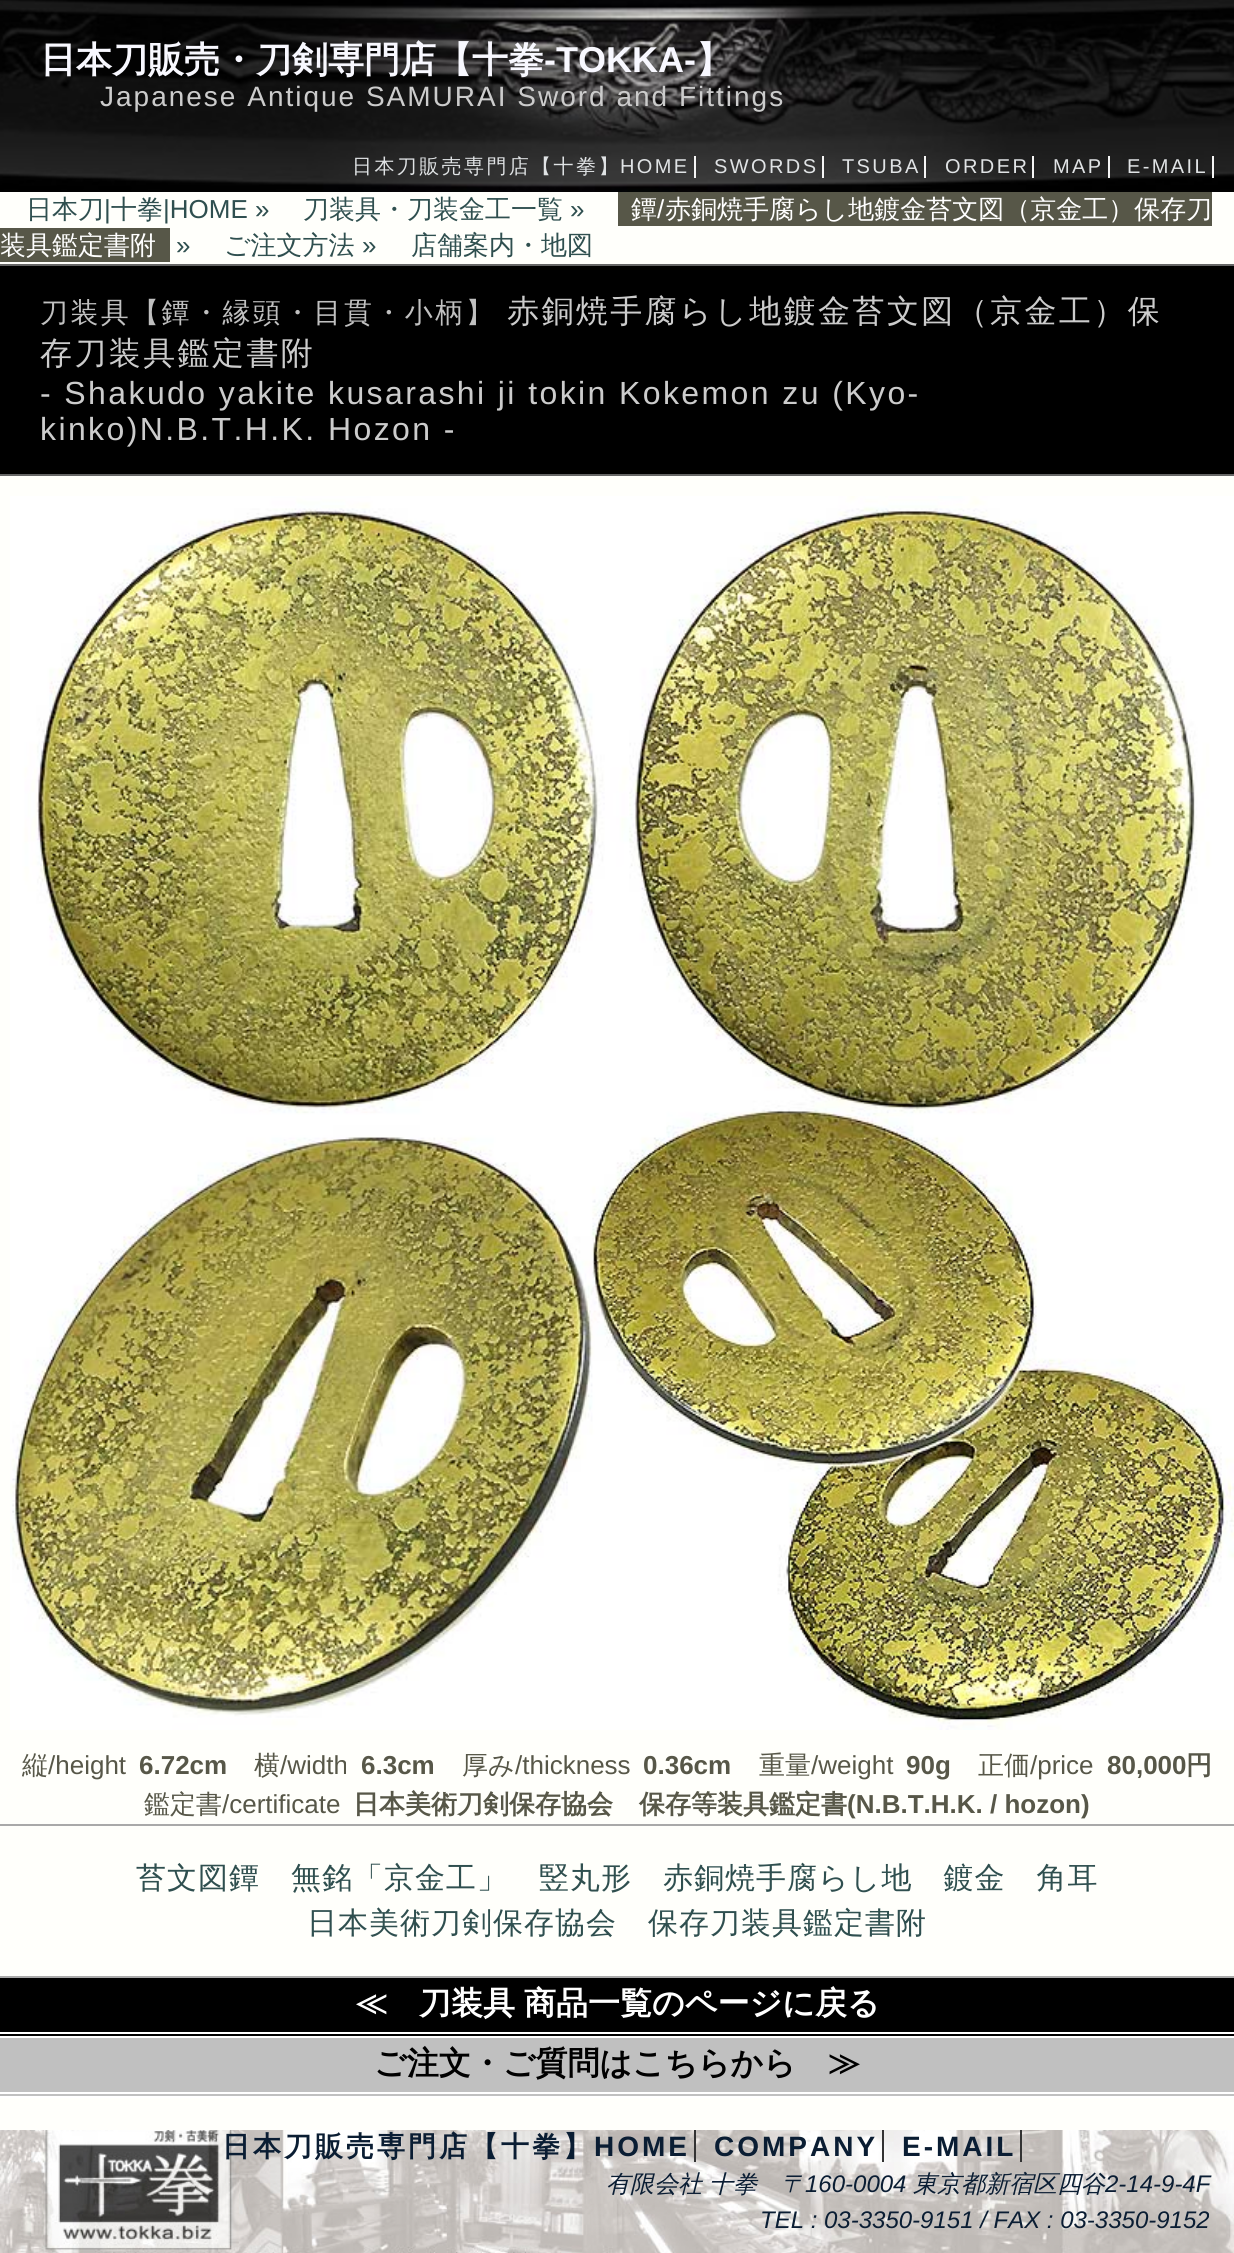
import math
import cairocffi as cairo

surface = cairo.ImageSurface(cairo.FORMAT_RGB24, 1234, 2253)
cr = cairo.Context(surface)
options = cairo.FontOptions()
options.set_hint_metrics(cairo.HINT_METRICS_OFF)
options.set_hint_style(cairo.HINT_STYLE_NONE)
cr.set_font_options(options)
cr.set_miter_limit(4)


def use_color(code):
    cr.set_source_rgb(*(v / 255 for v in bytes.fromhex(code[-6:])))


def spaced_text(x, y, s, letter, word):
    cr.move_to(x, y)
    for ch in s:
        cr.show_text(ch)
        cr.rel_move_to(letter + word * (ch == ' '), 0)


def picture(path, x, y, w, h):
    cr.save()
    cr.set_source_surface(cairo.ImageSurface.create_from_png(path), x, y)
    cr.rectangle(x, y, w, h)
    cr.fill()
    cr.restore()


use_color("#ffffff")
cr.paint()
picture("img1.png", 0, 0, 1234, 192)
cr.select_font_face("WenQuanYi Zen Hei", cairo.FONT_SLANT_NORMAL, cairo.FONT_WEIGHT_BOLD)
cr.set_font_size(36)
use_color("#f8f8ff")
cr.move_to(40, 72)
cr.show_text("日本刀販売・刀剣専門店【十拳")
cr.select_font_face("Liberation Sans", cairo.FONT_SLANT_NORMAL, cairo.FONT_WEIGHT_BOLD)
cr.move_to(544, 72)
cr.show_text("-TOKKA-")
cr.select_font_face("WenQuanYi Zen Hei", cairo.FONT_SLANT_NORMAL, cairo.FONT_WEIGHT_BOLD)
cr.move_to(696, 72)
cr.show_text("】")
cr.select_font_face("Liberation Sans")
cr.set_font_size(28)
use_color("#cccccc")
spaced_text(100, 106, "Japanese Antique SAMURAI Sword and Fittings", 2, 0)
cr.select_font_face("WenQuanYi Zen Hei Medium")
cr.set_font_size(20)
use_color("#e0e3e5")
spaced_text(352, 173, "日本刀販売専門店【十拳】", 2.4, 0)
cr.select_font_face("Liberation Sans")
spaced_text(620, 173, "HOME", 2.4, 0)
use_color("#f5f5f5")
cr.rectangle(694, 156, 2, 22)
cr.fill()
use_color("#e0e3e5")
spaced_text(714, 173, "SWORDS", 2.4, 0)
use_color("#f5f5f5")
cr.rectangle(822, 156, 2, 22)
cr.fill()
use_color("#e0e3e5")
spaced_text(842, 173, "TSUBA", 2.4, 0)
use_color("#f5f5f5")
cr.rectangle(924, 156, 2, 22)
cr.fill()
use_color("#e0e3e5")
spaced_text(945, 173, "ORDER", 2.4, 0)
use_color("#f5f5f5")
cr.rectangle(1032, 156, 2, 22)
cr.fill()
use_color("#e0e3e5")
spaced_text(1053, 173, "MAP", 2.4, 0)
use_color("#f5f5f5")
cr.rectangle(1108, 156, 2, 22)
cr.fill()
use_color("#e0e3e5")
spaced_text(1127, 173, "E-MAIL", 2.4, 0)
use_color("#f5f5f5")
cr.rectangle(1212, 156, 2, 22)
cr.fill()
use_color("#fffffb")
cr.rectangle(0, 192, 1234, 1938)
cr.fill()
cr.select_font_face("WenQuanYi Zen Hei Medium")
cr.set_font_size(26)
use_color("#2f4f4f")
cr.move_to(26, 218)
cr.show_text("日本刀")
cr.select_font_face("Liberation Sans")
cr.move_to(104, 218)
cr.show_text("|")
cr.select_font_face("WenQuanYi Zen Hei Medium")
cr.move_to(111, 218)
cr.show_text("十拳")
cr.select_font_face("Liberation Sans")
cr.move_to(163, 218)
cr.show_text("|HOME »")
cr.select_font_face("WenQuanYi Zen Hei Medium")
cr.move_to(303, 218)
cr.show_text("刀装具・刀装金工一覧")
cr.select_font_face("Liberation Sans")
cr.move_to(570, 218)
cr.show_text("»")
use_color("#575748")
cr.rectangle(618, 192, 594, 34)
cr.fill()
cr.select_font_face("WenQuanYi Zen Hei Medium")
use_color("#ffffff")
cr.move_to(631, 218)
cr.show_text("鐔")
cr.select_font_face("Liberation Sans")
cr.move_to(657, 218)
cr.show_text("/")
cr.select_font_face("WenQuanYi Zen Hei Medium")
cr.move_to(665, 218)
cr.show_text("赤銅焼手腐らし地鍍金苔文図（京金工）保存刀")
use_color("#575748")
cr.rectangle(0, 228, 170, 34)
cr.fill()
use_color("#ffffff")
cr.move_to(0, 254)
cr.show_text("装具鑑定書附")
cr.select_font_face("Liberation Sans")
use_color("#2f4f4f")
cr.move_to(176, 254)
cr.show_text("»")
cr.select_font_face("WenQuanYi Zen Hei Medium")
cr.move_to(224, 254)
cr.show_text("ご注文方法")
cr.select_font_face("Liberation Sans")
cr.move_to(362, 254)
cr.show_text("»")
cr.select_font_face("WenQuanYi Zen Hei Medium")
cr.move_to(411, 254)
cr.show_text("店舗案内・地図")
use_color("#000000")
cr.rectangle(0, 266, 1234, 208)
cr.fill()
use_color("#666666")
cr.rectangle(0, 264, 1234, 2)
cr.fill()
cr.rectangle(0, 474, 1234, 2)
cr.fill()
cr.set_font_size(28)
use_color("#c0c0c0")
spaced_text(40, 322, "刀装具【鐔・縁頭・目貫・小柄】", 2.4, 0)
cr.set_font_size(32)
use_color("#cccccc")
spaced_text(507, 322, "赤銅焼手腐らし地鍍金苔文図（京金工）保", 2.4, 0)
spaced_text(40, 364, "存刀装具鑑定書附", 2.4, 0)
cr.select_font_face("Liberation Sans")
spaced_text(40, 404, "- Shakudo yakite kusarashi ji tokin Kokemon zu (Kyo-", 2.4, 0)
spaced_text(40, 440, "kinko)N.B.T.H.K. Hozon -", 2.4, 0)
picture("img2.png", 10, 496, 1224, 1234)
cr.select_font_face("WenQuanYi Zen Hei Medium")
cr.set_font_size(26)
use_color("#575748")
cr.move_to(22, 1774)
cr.show_text("縦")
cr.select_font_face("Liberation Sans")
cr.move_to(48, 1774)
cr.show_text("/height")
cr.select_font_face("Liberation Sans", cairo.FONT_SLANT_NORMAL, cairo.FONT_WEIGHT_BOLD)
cr.move_to(139, 1774)
cr.show_text("6.72cm")
cr.select_font_face("WenQuanYi Zen Hei Medium")
cr.move_to(254, 1774)
cr.show_text("横")
cr.select_font_face("Liberation Sans")
cr.move_to(280, 1774)
cr.show_text("/width")
cr.select_font_face("Liberation Sans", cairo.FONT_SLANT_NORMAL, cairo.FONT_WEIGHT_BOLD)
cr.move_to(361, 1774)
cr.show_text("6.3cm")
cr.select_font_face("WenQuanYi Zen Hei Medium")
cr.move_to(462, 1774)
cr.show_text("厚み")
cr.select_font_face("Liberation Sans")
cr.move_to(515, 1774)
cr.show_text("/thickness")
cr.select_font_face("Liberation Sans", cairo.FONT_SLANT_NORMAL, cairo.FONT_WEIGHT_BOLD)
cr.move_to(643, 1774)
cr.show_text("0.36cm")
cr.select_font_face("WenQuanYi Zen Hei Medium")
cr.move_to(759, 1774)
cr.show_text("重量")
cr.select_font_face("Liberation Sans")
cr.move_to(811, 1774)
cr.show_text("/weight")
cr.select_font_face("Liberation Sans", cairo.FONT_SLANT_NORMAL, cairo.FONT_WEIGHT_BOLD)
cr.move_to(906, 1774)
cr.show_text("90g")
cr.select_font_face("WenQuanYi Zen Hei Medium")
cr.move_to(978, 1774)
cr.show_text("正価")
cr.select_font_face("Liberation Sans")
cr.move_to(1030, 1774)
cr.show_text("/price")
cr.select_font_face("Liberation Sans", cairo.FONT_SLANT_NORMAL, cairo.FONT_WEIGHT_BOLD)
cr.move_to(1107, 1774)
cr.show_text("80,000")
cr.select_font_face("WenQuanYi Zen Hei", cairo.FONT_SLANT_NORMAL, cairo.FONT_WEIGHT_BOLD)
cr.move_to(1186, 1774)
cr.show_text("円")
cr.select_font_face("WenQuanYi Zen Hei Medium")
cr.move_to(144, 1813)
cr.show_text("鑑定書")
cr.select_font_face("Liberation Sans")
cr.move_to(222, 1813)
cr.show_text("/certificate")
cr.select_font_face("WenQuanYi Zen Hei", cairo.FONT_SLANT_NORMAL, cairo.FONT_WEIGHT_BOLD)
cr.move_to(353, 1813)
cr.show_text("日本美術刀剣保存協会　保存等装具鑑定書")
cr.select_font_face("Liberation Sans", cairo.FONT_SLANT_NORMAL, cairo.FONT_WEIGHT_BOLD)
cr.move_to(847, 1813)
cr.show_text("(N.B.T.H.K. / hozon)")
use_color("#a9a9a9")
cr.rectangle(0, 1824, 1234, 2)
cr.fill()
cr.rectangle(0, 1976, 1234, 2)
cr.fill()
cr.select_font_face("WenQuanYi Zen Hei Medium")
cr.set_font_size(30)
use_color("#2f4f4f")
spaced_text(136, 1888, "苔文図鐔　無銘「京金工」　竪丸形　赤銅焼手腐らし地　鍍金　角耳", 1, 0)
spaced_text(307, 1933, "日本美術刀剣保存協会　保存刀装具鑑定書附", 1, 0)
use_color("#000000")
cr.rectangle(0, 1978, 1234, 58)
cr.fill()
use_color("#ffffff")
cr.rectangle(0, 2032, 1234, 2)
cr.fill()
cr.rectangle(0, 2036, 1234, 2)
cr.fill()
cr.select_font_face("WenQuanYi Zen Hei", cairo.FONT_SLANT_NORMAL, cairo.FONT_WEIGHT_BOLD)
cr.set_font_size(32)
cr.move_to(355, 2014)
cr.show_text("≪")
cr.move_to(419, 2014)
cr.show_text("刀装具")
cr.move_to(524, 2014)
cr.show_text("商品一覧のページに戻る")
use_color("#c0c0c0")
cr.rectangle(0, 2038, 1234, 58)
cr.fill()
use_color("#ffffff")
cr.rectangle(0, 2092, 1234, 2)
cr.fill()
cr.rectangle(0, 2096, 1234, 2)
cr.fill()
use_color("#000000")
cr.move_to(374, 2074)
cr.show_text("ご注文・ご質問はこちらから")
cr.move_to(828, 2074)
cr.show_text("≫")
picture("img3.png", 0, 2130, 1234, 123)
cr.set_font_size(28)
use_color("#0a1d33")
spaced_text(222, 2156, "日本刀販売専門店【十拳】", 3, 0)
cr.select_font_face("Liberation Sans", cairo.FONT_SLANT_NORMAL, cairo.FONT_WEIGHT_BOLD)
spaced_text(594, 2156, "HOME", 3, 0)
use_color("#333333")
cr.rectangle(694, 2130, 2, 32)
cr.fill()
use_color("#0a1d33")
spaced_text(714, 2156, "COMPANY", 3, 0)
use_color("#333333")
cr.rectangle(882, 2130, 2, 32)
cr.fill()
use_color("#0a1d33")
spaced_text(902, 2156, "E-MAIL", 3, 0)
use_color("#333333")
cr.rectangle(1020, 2130, 2, 32)
cr.fill()
cr.select_font_face("WenQuanYi Zen Hei Medium", cairo.FONT_SLANT_ITALIC)
cr.set_font_size(24)
use_color("#0a1d33")
cr.move_to(606, 2192)
cr.show_text("有限会社")
cr.move_to(709, 2192)
cr.show_text("十拳")
cr.move_to(781, 2192)
cr.show_text("〒")
cr.select_font_face("Liberation Sans", cairo.FONT_SLANT_ITALIC)
cr.move_to(805, 2192)
cr.show_text("160-0004")
cr.select_font_face("WenQuanYi Zen Hei Medium", cairo.FONT_SLANT_ITALIC)
cr.move_to(913, 2192)
cr.show_text("東京都新宿区四谷")
cr.select_font_face("Liberation Sans", cairo.FONT_SLANT_ITALIC)
cr.move_to(1105, 2192)
cr.show_text("2-14-9-4F")
cr.move_to(760, 2228)
cr.show_text("TEL : 03-3350-9151 / FAX : 03-3350-9152")
surface.write_to_png("result.png")
